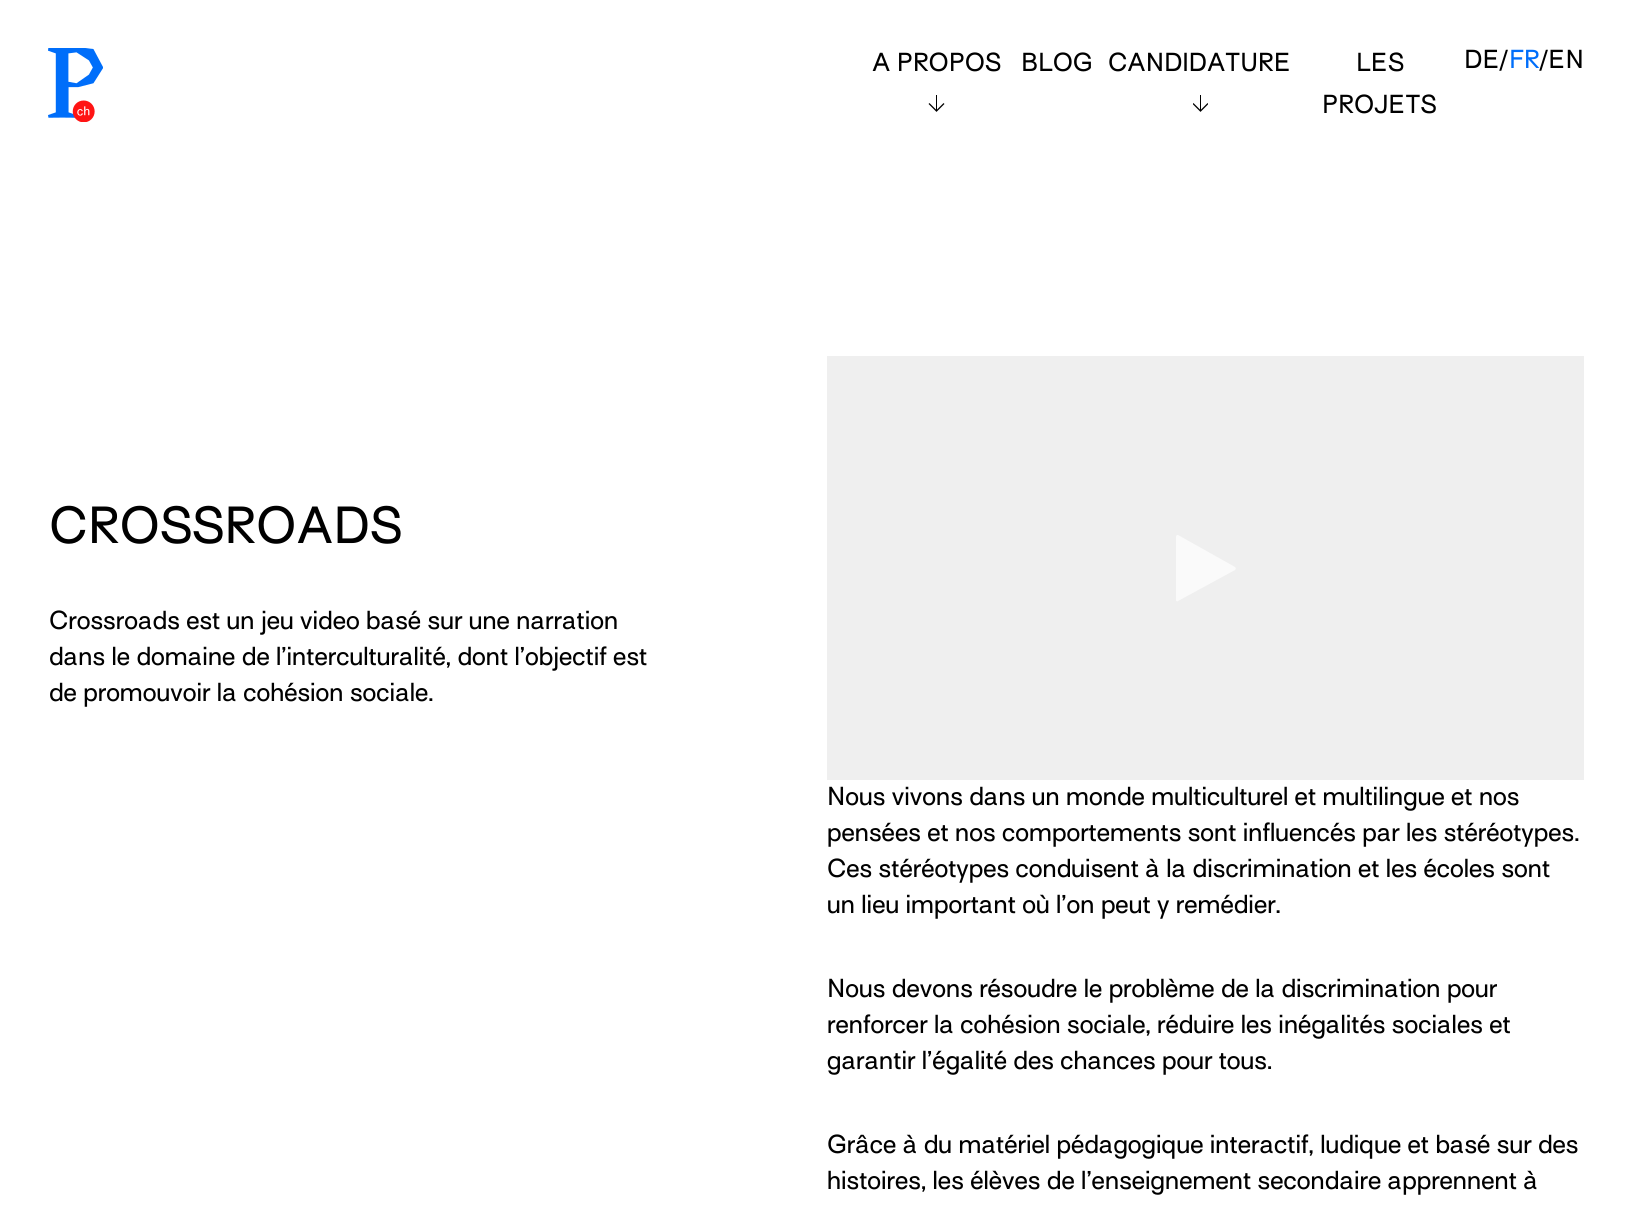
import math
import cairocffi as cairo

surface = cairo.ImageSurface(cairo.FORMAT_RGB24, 1632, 1212)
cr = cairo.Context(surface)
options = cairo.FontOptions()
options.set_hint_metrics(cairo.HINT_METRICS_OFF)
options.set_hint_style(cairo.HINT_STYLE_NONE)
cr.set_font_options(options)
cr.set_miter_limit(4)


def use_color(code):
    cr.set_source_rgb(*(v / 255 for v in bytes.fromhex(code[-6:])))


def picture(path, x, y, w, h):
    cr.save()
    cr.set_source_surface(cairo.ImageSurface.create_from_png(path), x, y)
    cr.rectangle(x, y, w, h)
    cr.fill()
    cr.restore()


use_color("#ffffff")
cr.paint()
picture("img1.png", 48, 48, 55, 74)
cr.select_font_face("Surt")
cr.set_font_size(24)
use_color("#000000")
cr.move_to(872, 71)
cr.show_text("A PROPOS")
cr.new_path()
cr.move_to(944, 103.5)
cr.line_to(936.5, 111)
cr.line_to(929, 103.5)
cr.set_line_width(1.3)
cr.stroke()
cr.rectangle(936, 95, 1, 16)
cr.fill()
cr.move_to(1021, 71)
cr.show_text("BLOG")
cr.move_to(1108, 71)
cr.show_text("CANDIDATURE")
cr.save()
cr.rectangle(1193, 95, 15, 18)
cr.clip()
cr.new_path()
cr.move_to(1208, 103.5)
cr.line_to(1200.5, 111)
cr.line_to(1193, 103.5)
cr.stroke()
cr.restore()
cr.rectangle(1200, 95, 1, 16)
cr.fill()
cr.move_to(1356, 71)
cr.show_text("LES")
cr.move_to(1322, 113)
cr.show_text("PROJETS")
cr.move_to(1464, 68)
cr.show_text("DE")
cr.move_to(1499, 68)
cr.show_text("/")
use_color("#006efa")
cr.move_to(1509, 68)
cr.show_text("FR")
use_color("#000000")
cr.move_to(1539, 68)
cr.show_text("/EN")
cr.set_font_size(48)
cr.move_to(49, 543)
cr.show_text("CROSSROADS")
cr.set_font_size(24)
cr.move_to(49, 629)
cr.show_text("Crossroads est un jeu video basé sur une narration")
cr.move_to(49, 665)
cr.show_text("dans le domaine de l’interculturalité, dont l’objectif est")
cr.move_to(49, 701)
cr.show_text("de promouvoir la cohésion sociale.")
use_color("#efefef")
cr.rectangle(827, 356, 757, 424)
cr.fill()
use_color("#fafafa")
cr.new_path()
cr.move_to(1235, 570)
cr.curve_to(1236, 569, 1236, 568, 1235, 567)
cr.line_to(1178, 535)
cr.curve_to(1177, 535, 1176, 535, 1176, 537)
cr.line_to(1176, 600)
cr.curve_to(1176, 601, 1177, 602, 1178, 601)
cr.close_path()
cr.fill()
use_color("#000000")
cr.move_to(827, 805)
cr.show_text("Nous vivons dans un monde multiculturel et multilingue et nos")
cr.move_to(827, 841)
cr.show_text("pensées et nos comportements sont influencés par les stéréotypes.")
cr.move_to(827, 877)
cr.show_text("Ces stéréotypes conduisent à la discrimination et les écoles sont")
cr.move_to(827, 913)
cr.show_text("un lieu important où l’on peut y remédier.")
cr.move_to(827, 997)
cr.show_text("Nous devons résoudre le problème de la discrimination pour")
cr.move_to(827, 1033)
cr.show_text("renforcer la cohésion sociale, réduire les inégalités sociales et")
cr.move_to(827, 1069)
cr.show_text("garantir l’égalité des chances pour tous.")
cr.move_to(827, 1153)
cr.show_text("Grâce à du matériel pédagogique interactif, ludique et basé sur des")
cr.move_to(827, 1189)
cr.show_text("histoires, les élèves de l’enseignement secondaire apprennent à")
surface.write_to_png("result.png")
